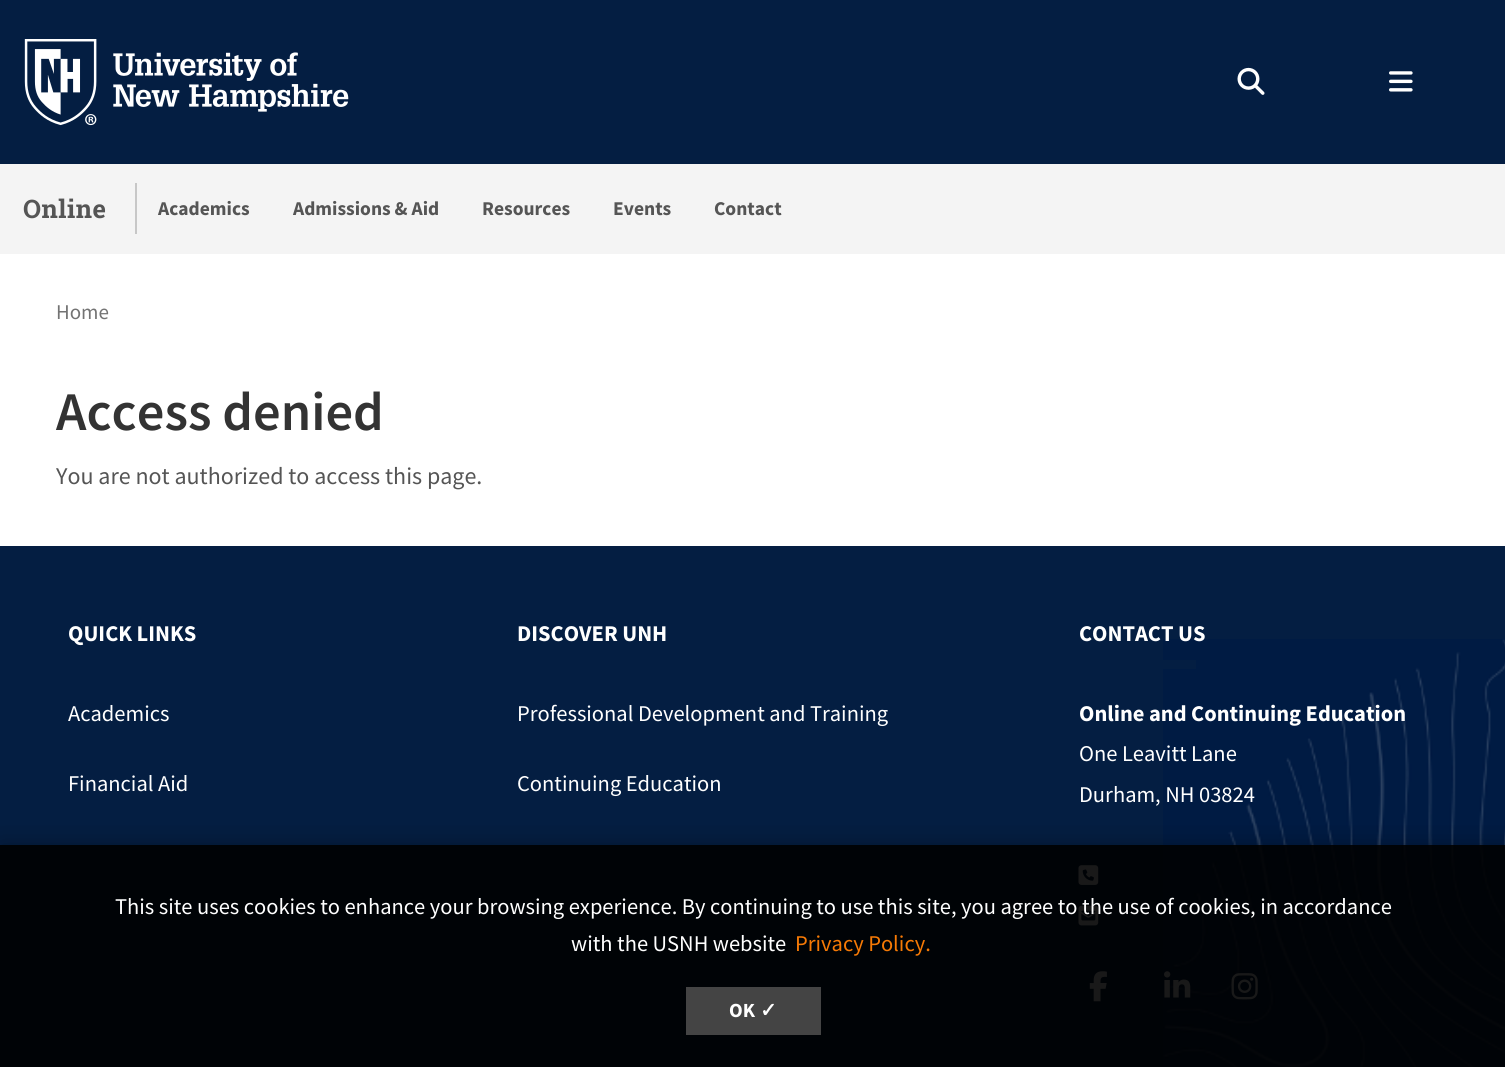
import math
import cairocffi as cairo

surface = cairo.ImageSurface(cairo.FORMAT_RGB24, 1505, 1067)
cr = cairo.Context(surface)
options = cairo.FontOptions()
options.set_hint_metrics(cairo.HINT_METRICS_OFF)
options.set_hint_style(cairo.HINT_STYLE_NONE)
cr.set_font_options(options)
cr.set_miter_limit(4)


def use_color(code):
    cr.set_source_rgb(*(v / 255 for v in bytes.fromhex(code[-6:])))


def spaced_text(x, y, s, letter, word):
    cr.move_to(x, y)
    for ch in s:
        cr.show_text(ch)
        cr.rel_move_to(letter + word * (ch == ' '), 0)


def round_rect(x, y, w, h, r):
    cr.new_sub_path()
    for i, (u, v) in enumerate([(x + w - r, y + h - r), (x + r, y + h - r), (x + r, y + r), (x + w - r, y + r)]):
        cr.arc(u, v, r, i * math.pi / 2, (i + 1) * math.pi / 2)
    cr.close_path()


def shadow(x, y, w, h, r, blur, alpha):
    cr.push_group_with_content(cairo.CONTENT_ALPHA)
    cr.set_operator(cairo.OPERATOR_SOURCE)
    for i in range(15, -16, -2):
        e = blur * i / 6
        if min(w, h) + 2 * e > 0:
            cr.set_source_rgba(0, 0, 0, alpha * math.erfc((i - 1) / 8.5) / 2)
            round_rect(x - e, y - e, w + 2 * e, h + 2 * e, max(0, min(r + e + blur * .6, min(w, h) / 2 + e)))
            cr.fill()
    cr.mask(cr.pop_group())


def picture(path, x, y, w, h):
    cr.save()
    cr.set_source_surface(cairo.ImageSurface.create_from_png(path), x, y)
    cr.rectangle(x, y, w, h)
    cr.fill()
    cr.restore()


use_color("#ffffff")
cr.paint()
use_color("#041e42")
cr.rectangle(0, 0, 1505, 164)
cr.fill()
picture("img1.png", 24, 39, 325, 87)
picture("img2.png", 1237, 67, 28, 28)
picture("img3.png", 1389, 71, 24, 21)
use_color("#f4f4f4")
cr.rectangle(0, 164, 1505, 90)
cr.fill()
cr.select_font_face("Roboto Slab", cairo.FONT_SLANT_NORMAL, cairo.FONT_WEIGHT_BOLD)
cr.set_font_size(25.5)
use_color("#555555")
spaced_text(23, 218, "Online", 0.5, 0)
use_color("#c7c7c7")
cr.rectangle(135, 183, 2, 51)
cr.fill()
cr.select_font_face("Source Sans Pro", cairo.FONT_SLANT_NORMAL, cairo.FONT_WEIGHT_BOLD)
cr.set_font_size(19.5)
use_color("#555555")
cr.move_to(158, 215)
cr.show_text("Academics")
cr.move_to(293, 215)
cr.show_text("Admissions & Aid")
cr.move_to(482, 215)
cr.show_text("Resources")
cr.move_to(613, 215)
cr.show_text("Events")
cr.move_to(714, 215)
cr.show_text("Contact")
cr.select_font_face("Source Sans Pro")
cr.set_font_size(21)
use_color("#737373")
cr.move_to(56, 319)
cr.show_text("Home")
cr.select_font_face("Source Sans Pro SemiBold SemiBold")
cr.set_font_size(54.5)
use_color("#333333")
cr.move_to(56, 430)
cr.show_text("Access denied")
cr.select_font_face("Source Sans Pro")
cr.set_font_size(24)
use_color("#555555")
cr.move_to(56, 484)
cr.show_text("You are not authorized to access this page.")
use_color("#041e42")
cr.rectangle(0, 546, 1505, 521)
cr.fill()
cr.select_font_face("Source Sans Pro", cairo.FONT_SLANT_NORMAL, cairo.FONT_WEIGHT_BOLD)
cr.set_font_size(22.5)
use_color("#ffffff")
cr.move_to(68, 641)
cr.show_text("QUICK LINKS")
cr.select_font_face("Source Sans Pro")
cr.move_to(68, 721)
cr.show_text("Academics")
cr.move_to(68, 791)
cr.show_text("Financial Aid")
cr.select_font_face("Source Sans Pro", cairo.FONT_SLANT_NORMAL, cairo.FONT_WEIGHT_BOLD)
cr.move_to(517, 641)
cr.show_text("DISCOVER UNH")
cr.select_font_face("Source Sans Pro")
cr.move_to(517, 721)
cr.show_text("Professional Development and Training")
cr.move_to(517, 791)
cr.show_text("Continuing Education")
picture("img4.png", 1163, 639, 342, 428)
cr.select_font_face("Source Sans Pro", cairo.FONT_SLANT_NORMAL, cairo.FONT_WEIGHT_BOLD)
cr.move_to(1079, 641)
cr.show_text("CONTACT US")
use_color("#041e42")
cr.rectangle(1163, 660, 33, 9)
cr.fill()
use_color("#ffffff")
cr.move_to(1079, 721)
cr.show_text("Online and Continuing Education")
cr.select_font_face("Source Sans Pro")
cr.move_to(1079, 761)
cr.show_text("One Leavitt Lane")
cr.move_to(1079, 802)
cr.show_text("Durham, NH 03824")
picture("img5.png", 1078, 865, 21, 20)
picture("img6.png", 1078, 905, 21, 21)
picture("img7.png", 1089, 971, 18, 31)
picture("img8.png", 1164, 971, 27, 27)
picture("img9.png", 1231, 973, 27, 27)
cr.save()
cr.rectangle(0, 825, 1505, 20)
cr.clip()
use_color("#000000")
shadow(0, 845, 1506, 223, 0, 13, 0.3)
cr.restore()
cr.set_source_rgba(0, 0, 0, 0.9)
cr.rectangle(0, 845, 1505, 222)
cr.fill()
use_color("#ffffff")
cr.move_to(115, 914)
cr.show_text("This site uses cookies to enhance your browsing experience. By continuing to use this site, you agree to the use of cookies, in accordance")
cr.move_to(571, 951)
cr.show_text("with the USNH website")
use_color("#f77a05")
cr.move_to(795, 951)
cr.show_text("Privacy Policy.")
use_color("#444444")
cr.rectangle(686, 987, 135, 48)
cr.fill()
cr.select_font_face("Source Sans Pro", cairo.FONT_SLANT_NORMAL, cairo.FONT_WEIGHT_BOLD)
cr.set_font_size(20)
use_color("#ffffff")
cr.move_to(729, 1017)
cr.show_text("OK")
cr.select_font_face("DejaVu Sans", cairo.FONT_SLANT_NORMAL, cairo.FONT_WEIGHT_BOLD)
cr.move_to(760, 1017)
cr.show_text("✓")
surface.write_to_png("result.png")
